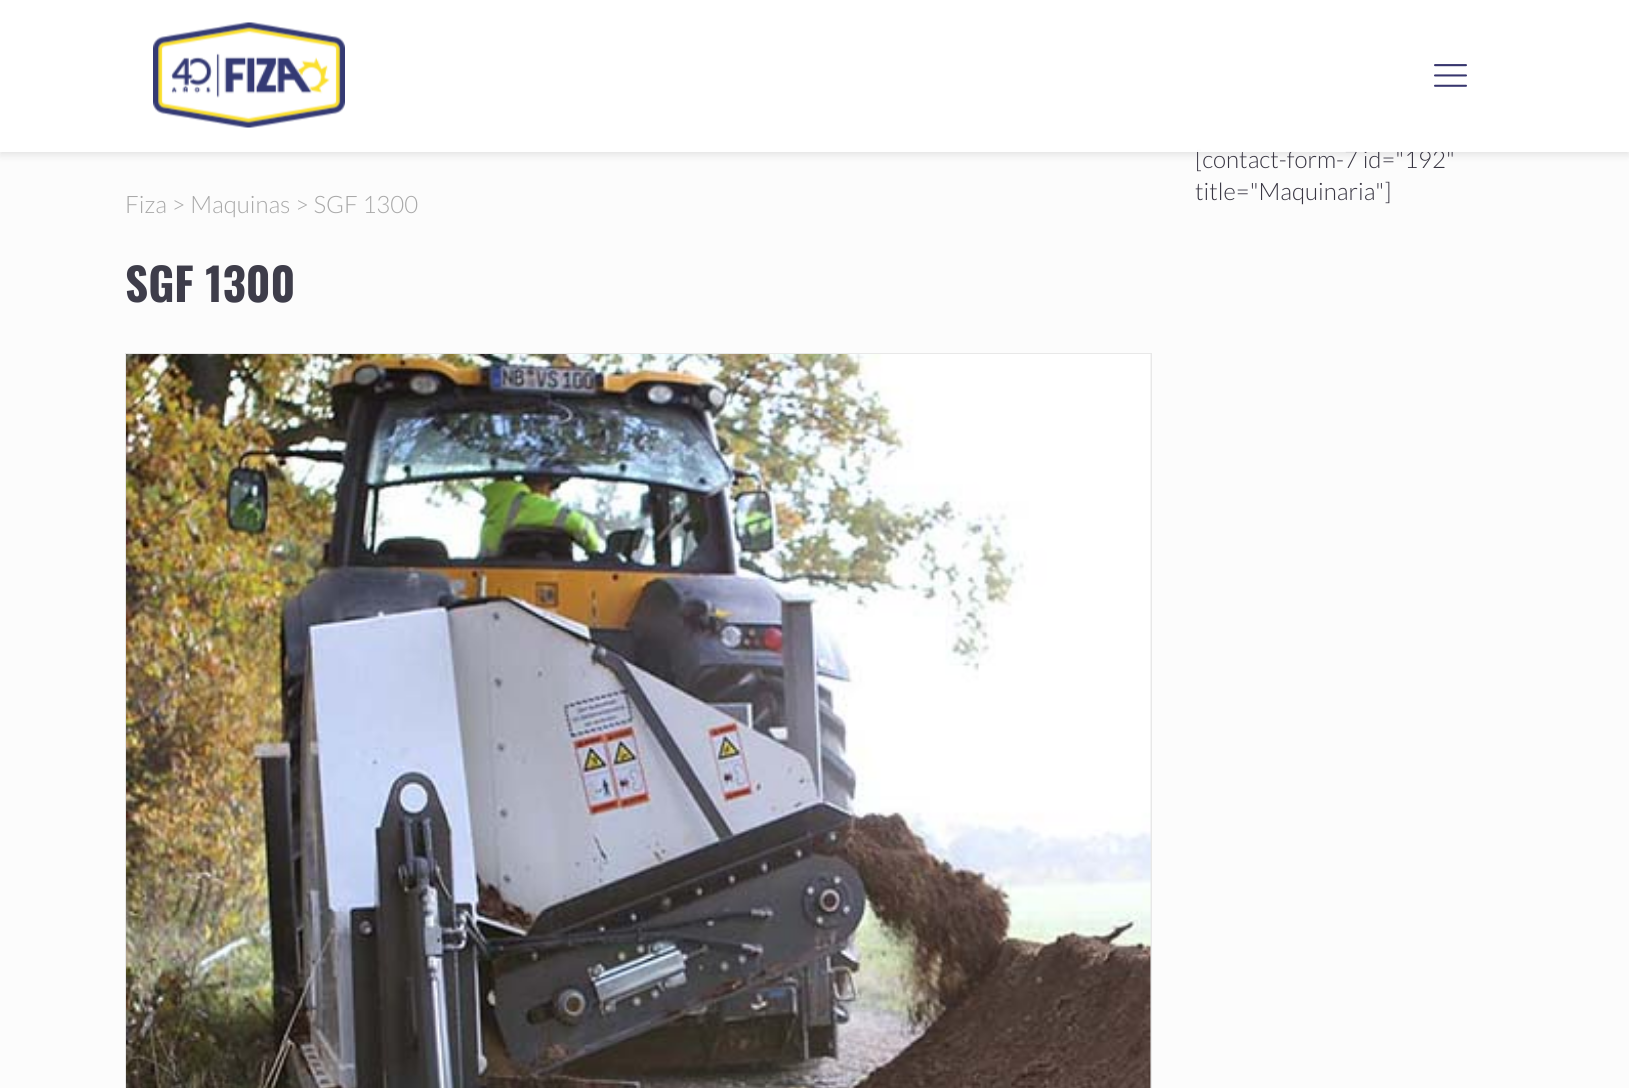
import math
import cairocffi as cairo

surface = cairo.ImageSurface(cairo.FORMAT_RGB24, 1629, 1088)
cr = cairo.Context(surface)
options = cairo.FontOptions()
options.set_hint_metrics(cairo.HINT_METRICS_OFF)
options.set_hint_style(cairo.HINT_STYLE_NONE)
cr.set_font_options(options)
cr.set_miter_limit(4)


def use_color(code):
    cr.set_source_rgb(*(v / 255 for v in bytes.fromhex(code[-6:])))


def round_rect(x, y, w, h, r):
    cr.new_sub_path()
    for i, (u, v) in enumerate([(x + w - r, y + h - r), (x + r, y + h - r), (x + r, y + r), (x + w - r, y + r)]):
        cr.arc(u, v, r, i * math.pi / 2, (i + 1) * math.pi / 2)
    cr.close_path()


def shadow(x, y, w, h, r, blur, alpha):
    cr.push_group_with_content(cairo.CONTENT_ALPHA)
    cr.set_operator(cairo.OPERATOR_SOURCE)
    for i in range(15, -16, -2):
        e = blur * i / 6
        if min(w, h) + 2 * e > 0:
            cr.set_source_rgba(0, 0, 0, alpha * math.erfc((i - 1) / 8.5) / 2)
            round_rect(x - e, y - e, w + 2 * e, h + 2 * e, max(0, min(r + e + blur * .6, min(w, h) / 2 + e)))
            cr.fill()
    cr.mask(cr.pop_group())


def picture(path, x, y, w, h):
    cr.save()
    cr.set_source_surface(cairo.ImageSurface.create_from_png(path), x, y)
    cr.rectangle(x, y, w, h)
    cr.fill()
    cr.restore()


use_color("#fcfcfc")
cr.paint()
use_color("#ffffff")
cr.rectangle(0, 0, 1629, 143)
cr.fill()
cr.save()
cr.set_fill_rule(cairo.FILL_RULE_EVEN_ODD)
cr.new_path()
cr.move_to(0, 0)
cr.line_to(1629, 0)
cr.line_to(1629, 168)
cr.line_to(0, 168)
cr.close_path()
cr.move_to(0, 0)
cr.line_to(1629, 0)
cr.line_to(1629, 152)
cr.line_to(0, 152)
cr.close_path()
cr.clip()
use_color("#000000")
shadow(0, 3, 1629, 152, 0, 4, 0.1)
cr.restore()
cr.select_font_face("Lato Light")
cr.set_font_size(24)
use_color("#373441")
cr.move_to(1195, 168)
cr.show_text("[contact-form-7 id=\"192\"")
cr.set_source_rgba(1, 1, 1, 0.97)
cr.rectangle(0, 143, 1629, 9)
cr.fill()
picture("img1.png", 153, 22, 192, 106)
picture("img2.png", 1434, 64, 33, 23)
use_color("#373441")
cr.move_to(1195, 200)
cr.show_text("title=\"Maquinaria\"]")
use_color("#a8a8a8")
cr.move_to(125, 213)
cr.show_text("Fiza > Maquinas > SGF 1300")
cr.select_font_face("Oswald", cairo.FONT_SLANT_NORMAL, cairo.FONT_WEIGHT_BOLD)
cr.set_font_size(45)
use_color("#3e3d4a")
cr.move_to(125, 302)
cr.show_text("SGF 1300")
cr.rectangle(126, 354, 1025, 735)
use_color("#e8e8e8")
cr.stroke()
picture("img3.png", 126, 354, 1025, 734)
surface.write_to_png("result.png")
